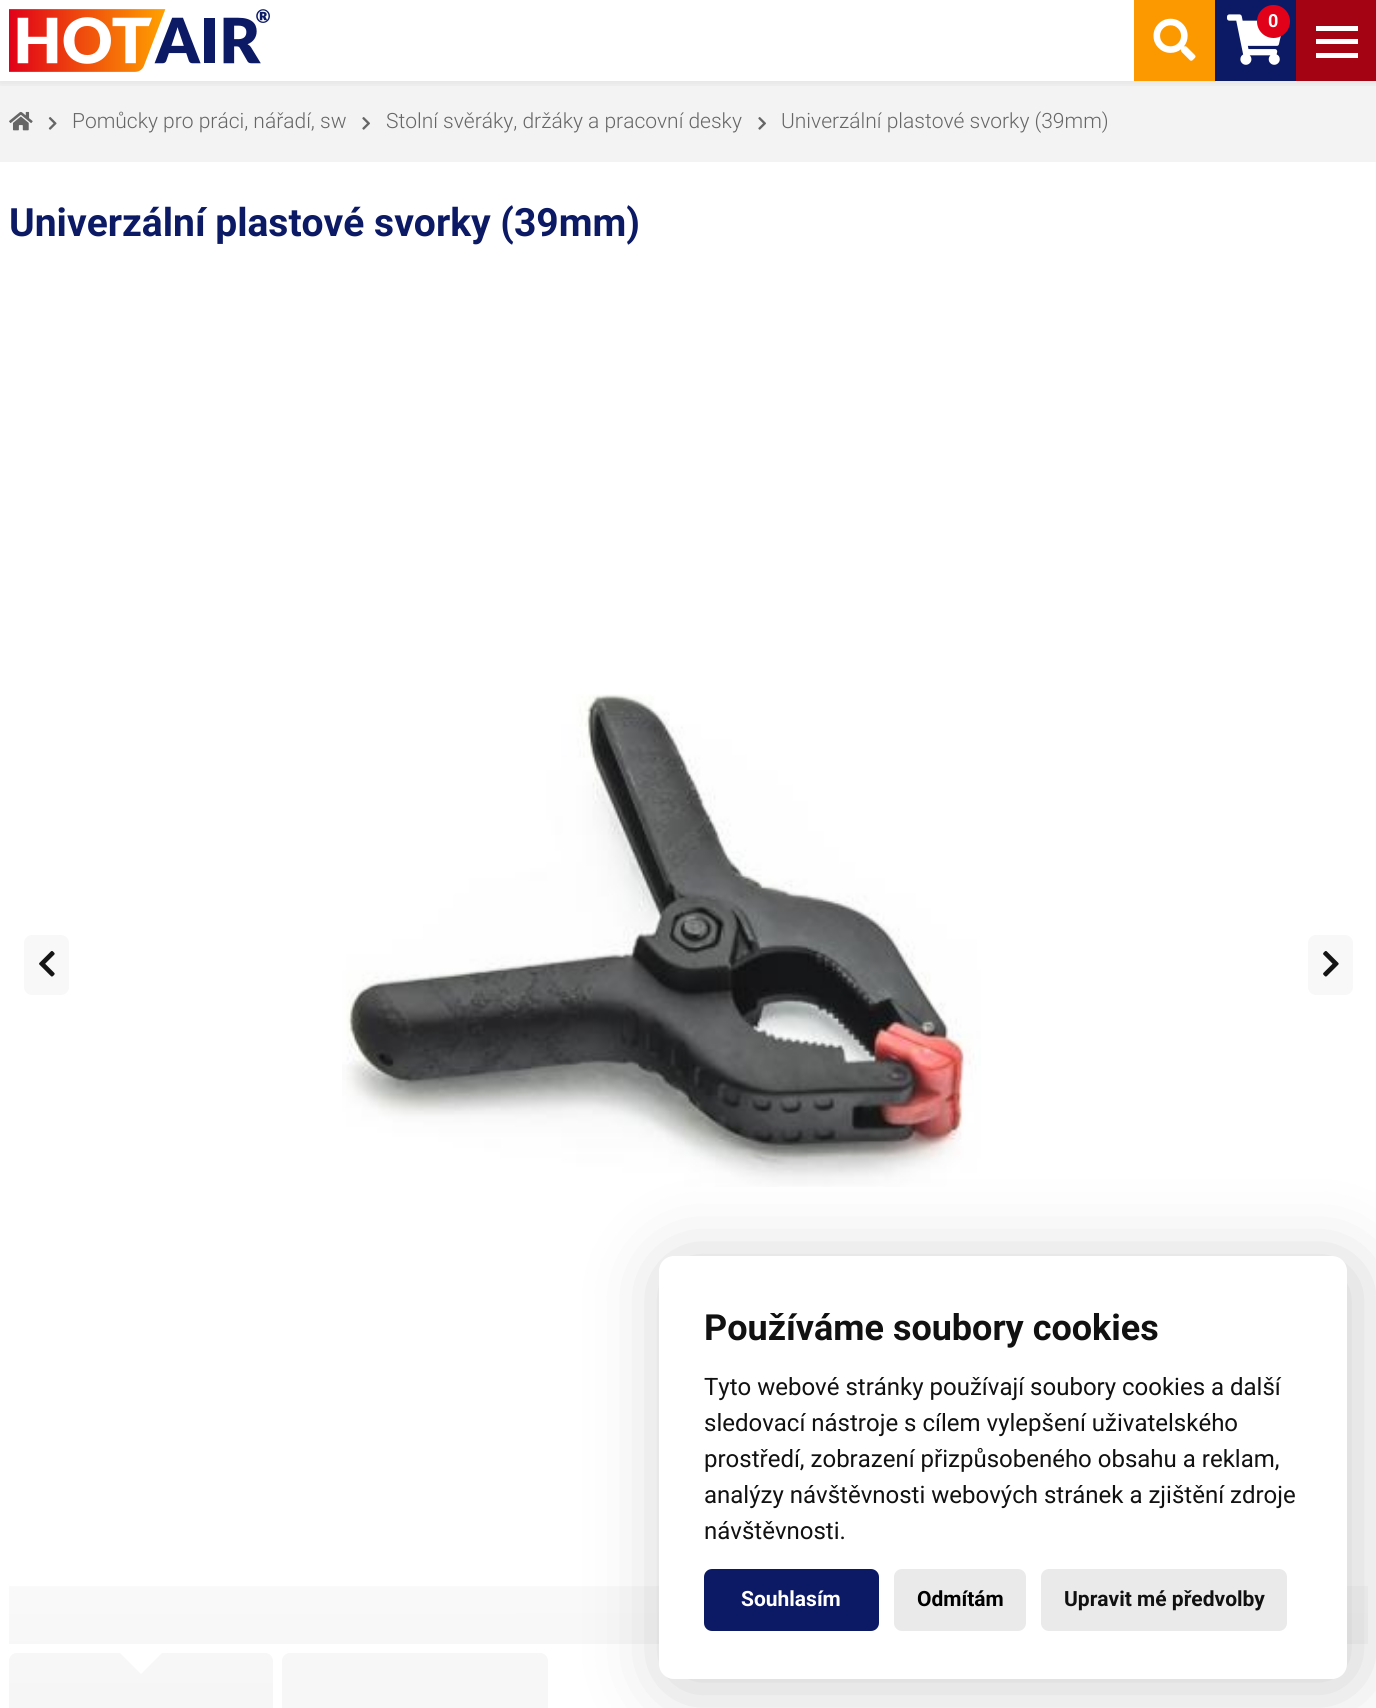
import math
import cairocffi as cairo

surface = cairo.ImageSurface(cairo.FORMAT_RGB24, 1376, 1708)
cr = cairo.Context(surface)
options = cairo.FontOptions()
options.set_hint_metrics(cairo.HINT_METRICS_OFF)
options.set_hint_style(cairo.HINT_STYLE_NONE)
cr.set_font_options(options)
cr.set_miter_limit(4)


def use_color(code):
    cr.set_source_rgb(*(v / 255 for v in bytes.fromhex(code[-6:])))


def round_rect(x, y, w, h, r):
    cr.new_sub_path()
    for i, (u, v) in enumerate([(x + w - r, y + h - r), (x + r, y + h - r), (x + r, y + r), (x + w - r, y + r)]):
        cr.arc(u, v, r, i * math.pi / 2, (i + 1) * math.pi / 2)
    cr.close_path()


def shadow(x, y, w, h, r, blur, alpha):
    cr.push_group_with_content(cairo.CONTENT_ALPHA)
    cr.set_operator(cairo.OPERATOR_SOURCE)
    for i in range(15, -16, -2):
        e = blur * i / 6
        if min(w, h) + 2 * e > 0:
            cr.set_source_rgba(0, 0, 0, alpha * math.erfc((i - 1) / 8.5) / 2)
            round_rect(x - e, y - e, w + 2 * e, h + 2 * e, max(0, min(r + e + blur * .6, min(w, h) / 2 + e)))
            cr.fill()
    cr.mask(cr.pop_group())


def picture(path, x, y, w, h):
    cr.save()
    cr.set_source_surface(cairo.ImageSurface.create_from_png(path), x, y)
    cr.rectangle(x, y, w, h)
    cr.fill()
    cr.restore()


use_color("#ffffff")
cr.paint()
use_color("#f3f3f3")
cr.rectangle(0, 81, 1376, 81)
cr.fill()
cr.save()
cr.rectangle(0, 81, 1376, 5)
cr.clip()
use_color("#000000")
shadow(0, 0, 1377, 81, 0, 6, 0.1)
cr.restore()
picture("img1.png", 9, 9, 261, 63)
use_color("#fc9901")
cr.rectangle(1134, 0, 81, 81)
cr.fill()
picture("img2.png", 1153, 18, 43, 43)
use_color("#0c1a66")
cr.rectangle(1215, 0, 81, 81)
cr.fill()
picture("img3.png", 1227, 14, 54, 51)
use_color("#e10219")
cr.arc(1273.5, 21.5, 16.5, 0, 2 * math.pi)
cr.fill()
cr.select_font_face("Roboto", cairo.FONT_SLANT_NORMAL, cairo.FONT_WEIGHT_BOLD)
cr.set_font_size(18)
use_color("#ffffff")
cr.move_to(1268, 27)
cr.show_text("0")
use_color("#a30312")
cr.rectangle(1296, 0, 80, 81)
cr.fill()
use_color("#ffffff")
cr.rectangle(1316, 26, 42, 5)
cr.fill()
cr.rectangle(1316, 39, 42, 5)
cr.fill()
cr.rectangle(1316, 53, 42, 5)
cr.fill()
picture("img4.png", 9, 111, 24, 20)
picture("img5.png", 48, 117, 9, 13)
cr.select_font_face("Roboto Light")
cr.set_font_size(21)
use_color("#666666")
cr.move_to(72, 128)
cr.show_text("Pomůcky pro práci, nářadí, sw")
picture("img6.png", 362, 117, 8, 13)
cr.move_to(386, 128)
cr.show_text("Stolní svěráky, držáky a pracovní desky")
picture("img6.png", 758, 117, 8, 13)
cr.move_to(781, 128)
cr.show_text("Univerzální plastové svorky (39mm)")
cr.select_font_face("Roboto", cairo.FONT_SLANT_NORMAL, cairo.FONT_WEIGHT_BOLD)
cr.set_font_size(39)
use_color("#0c1a66")
cr.move_to(9, 236)
cr.show_text("Univerzální plastové svorky (39mm)")
picture("img7.png", 342, 694, 639, 493)
gradient = cairo.LinearGradient(688, 285, 689, 1644)
gradient.add_color_stop_rgba(0.85, 0, 0, 0, 0)
gradient.add_color_stop_rgba(1, 0, 0, 0, 0.03)
cr.set_source(gradient)
cr.rectangle(9, 1586, 1359, 58)
cr.fill()
use_color("#f8f8f8")
round_rect(24, 935, 45, 60, 8)
cr.fill()
picture("img8.png", 39, 951, 16, 26)
round_rect(1308, 935, 45, 60, 8)
cr.fill()
picture("img9.png", 1323, 951, 16, 26)
cr.save()
round_rect(9, 1653, 264, 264, 8)
cr.clip()
gradient = cairo.LinearGradient(141, 1653, 141, 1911)
gradient.add_color_stop_rgba(0, 0.969, 0.969, 0.969, 1)
gradient.add_color_stop_rgba(1, 0.949, 0.949, 0.949, 1)
cr.set_source(gradient)
cr.new_path()
cr.move_to(17, 1653)
cr.line_to(265, 1653)
cr.curve_to(269.5, 1653, 273, 1656.5, 273, 1661)
cr.line_to(273, 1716)
cr.line_to(9, 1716)
cr.line_to(9, 1661)
cr.curve_to(9, 1656.5, 12.5, 1653, 17, 1653)
cr.close_path()
cr.fill()
cr.restore()
cr.save()
cr.rectangle(9, 1653, 1359, 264)
cr.clip()
use_color("#ffffff")
cr.new_path()
cr.move_to(141, 1631)
cr.line_to(162, 1653)
cr.line_to(141, 1674)
cr.line_to(120, 1653)
cr.close_path()
cr.fill()
cr.restore()
use_color("#f7f7f7")
round_rect(282, 1653, 266, 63, 8)
cr.fill()
use_color("#000000")
shadow(663, 1260, 695, 429, 18, 37.5, 0.18)
use_color("#ffffff")
round_rect(659, 1256, 688, 423, 15)
cr.fill()
cr.set_font_size(36)
use_color("#111111")
cr.move_to(704, 1340)
cr.show_text("Používáme soubory cookies")
cr.select_font_face("Roboto")
cr.set_font_size(24)
cr.move_to(704, 1395)
cr.show_text("Tyto webové stránky používají soubory cookies a další")
cr.move_to(704, 1431)
cr.show_text("sledovací nástroje s cílem vylepšení uživatelského")
cr.move_to(704, 1467)
cr.show_text("prostředí, zobrazení přizpůsobeného obsahu a reklam,")
cr.move_to(704, 1503)
cr.show_text("analýzy návštěvnosti webových stránek a zjištění zdroje")
cr.move_to(704, 1539)
cr.show_text("návštěvnosti.")
use_color("#0c1a66")
round_rect(704, 1569, 175, 62, 8)
cr.fill()
cr.select_font_face("Roboto", cairo.FONT_SLANT_NORMAL, cairo.FONT_WEIGHT_BOLD)
cr.set_font_size(21)
use_color("#ffffff")
cr.move_to(741, 1606)
cr.show_text("Souhlasím")
use_color("#eaeaea")
round_rect(894, 1569, 132, 62, 8)
cr.fill()
use_color("#000000")
cr.move_to(917, 1606)
cr.show_text("Odmítám")
use_color("#eaeaea")
round_rect(1041, 1569, 246, 62, 8)
cr.fill()
use_color("#111111")
cr.move_to(1064, 1606)
cr.show_text("Upravit mé předvolby")
surface.write_to_png("result.png")
